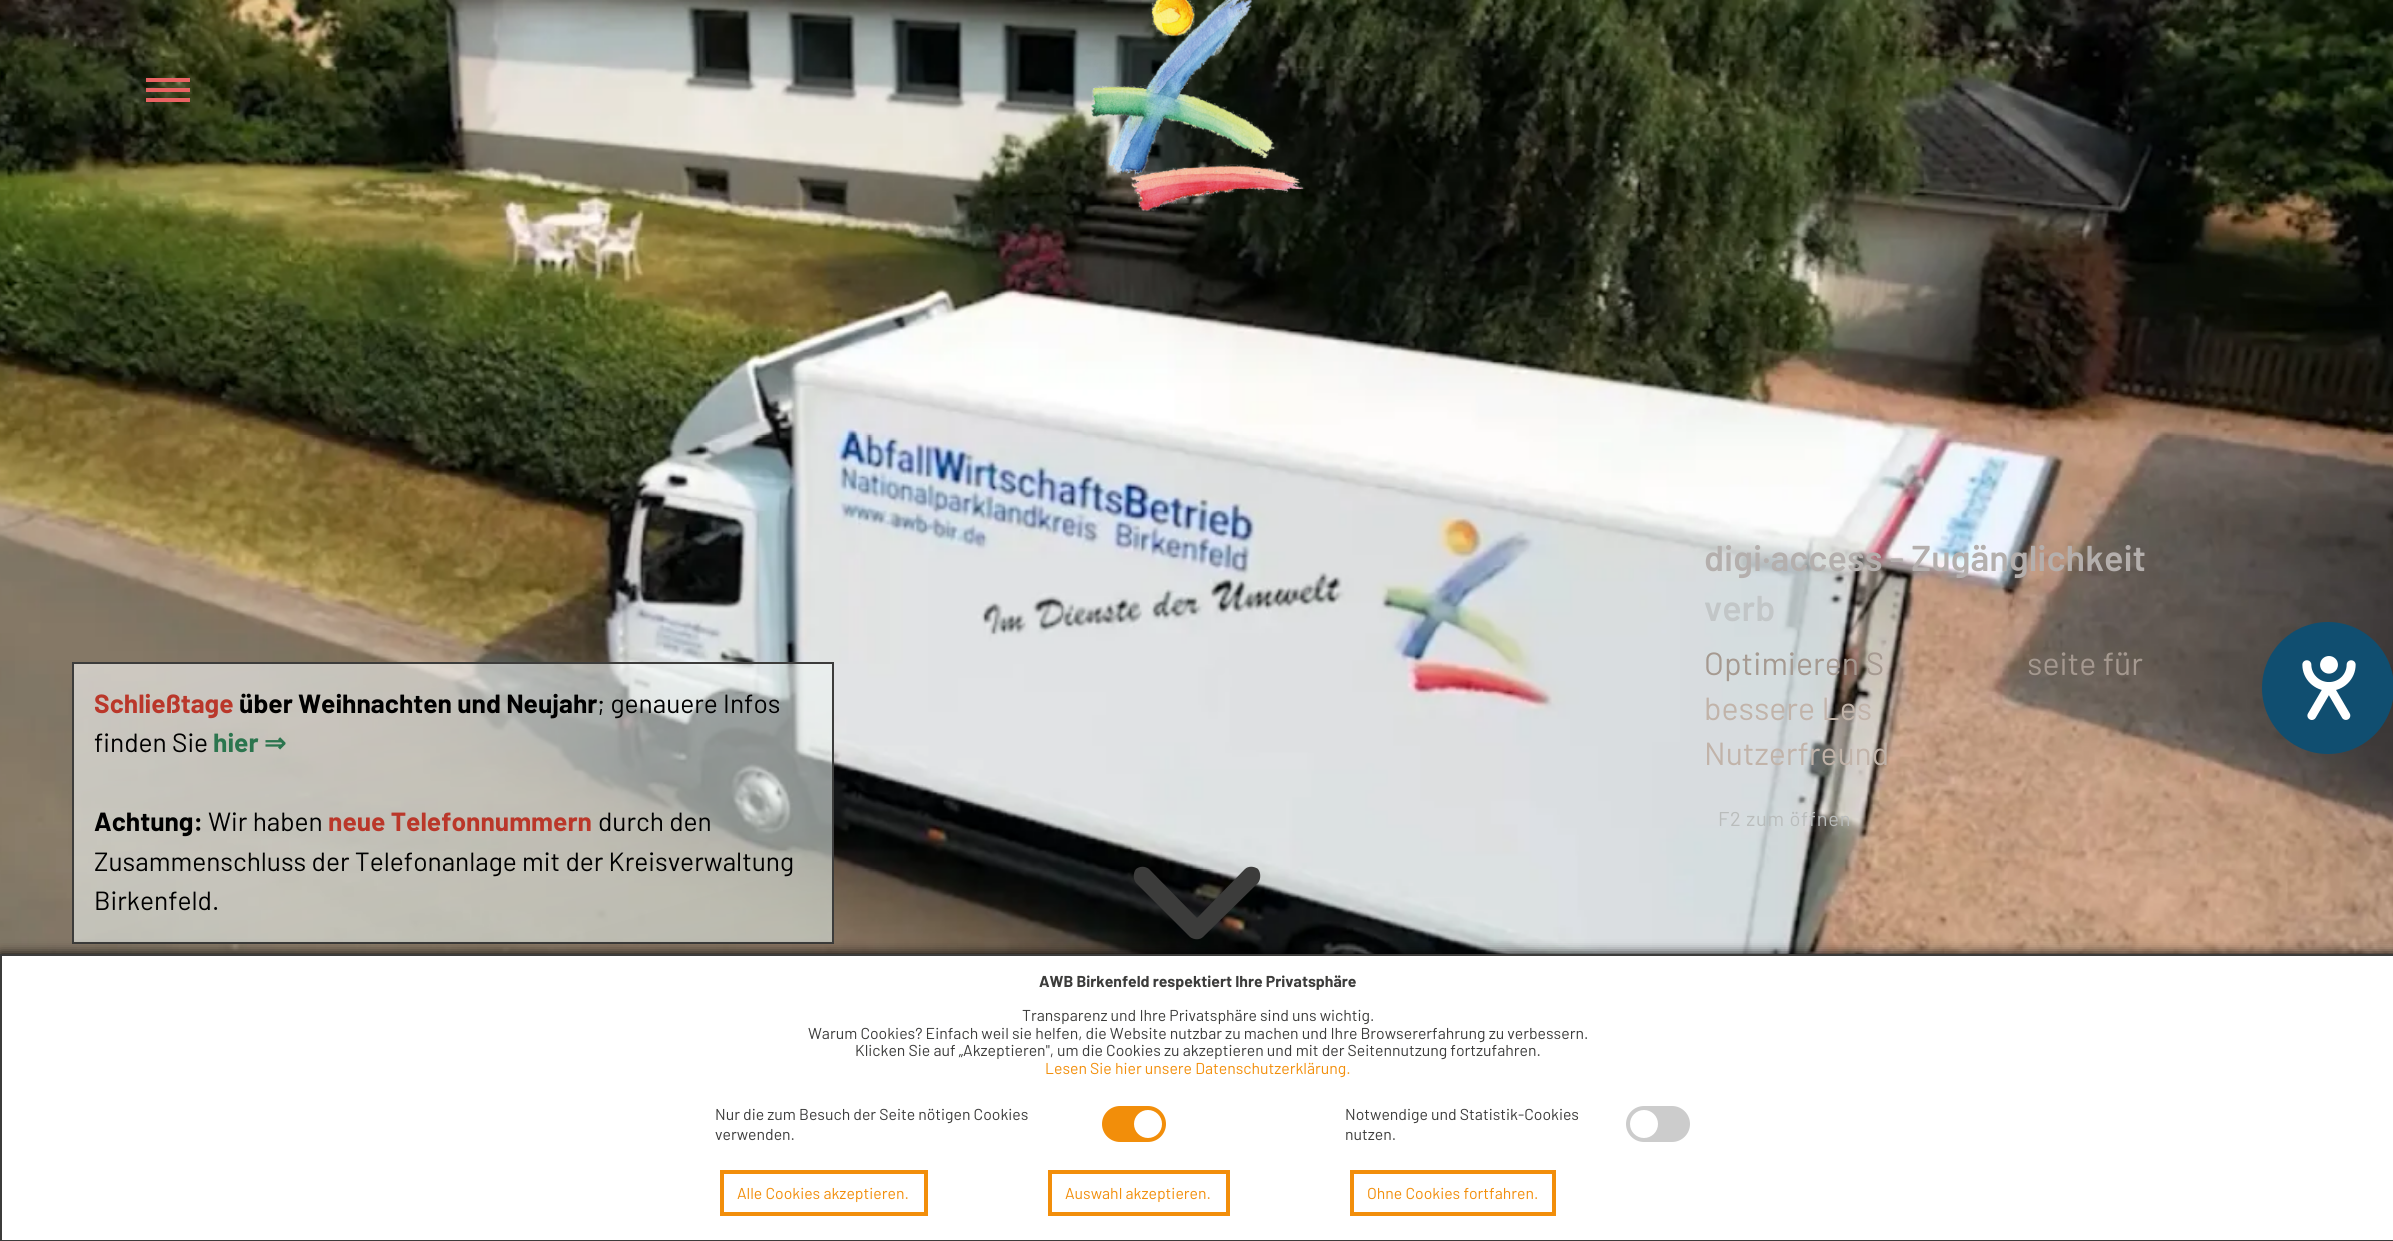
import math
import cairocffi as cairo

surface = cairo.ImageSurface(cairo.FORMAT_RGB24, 2393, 1241)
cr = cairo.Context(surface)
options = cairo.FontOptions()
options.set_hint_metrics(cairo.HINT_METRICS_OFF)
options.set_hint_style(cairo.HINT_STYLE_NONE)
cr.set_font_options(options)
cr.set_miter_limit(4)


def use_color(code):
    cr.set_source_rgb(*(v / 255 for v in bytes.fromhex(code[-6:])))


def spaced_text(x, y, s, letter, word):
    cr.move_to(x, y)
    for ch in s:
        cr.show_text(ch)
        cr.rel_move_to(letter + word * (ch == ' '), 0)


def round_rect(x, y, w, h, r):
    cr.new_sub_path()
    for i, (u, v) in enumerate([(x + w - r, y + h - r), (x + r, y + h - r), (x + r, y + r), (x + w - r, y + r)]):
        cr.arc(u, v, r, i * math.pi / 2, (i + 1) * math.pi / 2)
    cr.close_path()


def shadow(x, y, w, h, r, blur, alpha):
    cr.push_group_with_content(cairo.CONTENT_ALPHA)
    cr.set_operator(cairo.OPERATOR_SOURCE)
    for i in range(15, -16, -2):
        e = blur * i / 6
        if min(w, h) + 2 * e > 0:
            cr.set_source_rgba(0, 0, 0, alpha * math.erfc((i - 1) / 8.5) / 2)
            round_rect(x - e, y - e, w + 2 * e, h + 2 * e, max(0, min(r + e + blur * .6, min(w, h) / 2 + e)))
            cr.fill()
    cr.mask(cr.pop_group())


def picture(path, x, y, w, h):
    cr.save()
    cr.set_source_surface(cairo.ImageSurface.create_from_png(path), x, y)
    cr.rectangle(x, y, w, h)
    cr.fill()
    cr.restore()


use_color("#ffffff")
cr.paint()
picture("img2.png", 0, 0, 2393, 954)
use_color("#e86262")
cr.rectangle(146, 78, 44, 4)
cr.fill()
cr.rectangle(146, 88, 44, 4)
cr.fill()
cr.rectangle(146, 98, 44, 4)
cr.fill()
picture("img1.png", 1090, 0, 215, 212)
cr.rectangle(73, 663, 760, 280)
use_color("#3c3c3b")
cr.stroke()
cr.select_font_face("Barlow", cairo.FONT_SLANT_NORMAL, cairo.FONT_WEIGHT_BOLD)
cr.set_font_size(26.3)
use_color("#ba372a")
cr.move_to(94, 713)
cr.show_text("Schließtage")
use_color("#000000")
cr.move_to(239, 713)
cr.show_text("über Weihnachten und Neujahr")
cr.select_font_face("Barlow")
cr.move_to(597, 713)
cr.show_text("; genauere Infos")
cr.move_to(94, 752)
cr.show_text("finden Sie")
cr.select_font_face("Barlow", cairo.FONT_SLANT_NORMAL, cairo.FONT_WEIGHT_BOLD)
use_color("#2b754e")
cr.move_to(213, 752)
cr.show_text("hier")
cr.select_font_face("DejaVu Sans", cairo.FONT_SLANT_NORMAL, cairo.FONT_WEIGHT_BOLD)
cr.move_to(264, 752)
cr.show_text("⇒")
cr.select_font_face("Barlow", cairo.FONT_SLANT_NORMAL, cairo.FONT_WEIGHT_BOLD)
use_color("#000000")
cr.move_to(94, 831)
cr.show_text("Achtung:")
cr.select_font_face("Barlow")
cr.move_to(208, 831)
cr.show_text("Wir haben")
cr.select_font_face("Barlow", cairo.FONT_SLANT_NORMAL, cairo.FONT_WEIGHT_BOLD)
use_color("#ba372a")
cr.move_to(328, 831)
cr.show_text("neue Telefonnummern")
cr.select_font_face("Barlow")
use_color("#000000")
cr.move_to(598, 831)
cr.show_text("durch den")
cr.move_to(94, 871)
cr.show_text("Zusammenschluss der Telefonanlage mit der Kreisverwaltung")
cr.move_to(94, 910)
cr.show_text("Birkenfeld.")
use_color("#3c3c3b")
cr.new_path()
cr.move_to(1190, 937)
cr.curve_to(1194, 940, 1200, 940, 1203, 937)
cr.line_to(1258, 883)
cr.curve_to(1261, 879, 1261, 873, 1258, 869)
cr.curve_to(1254, 866, 1248, 866, 1245, 869)
cr.line_to(1197, 918)
cr.line_to(1149, 869)
cr.curve_to(1145, 866, 1140, 866, 1136, 869)
cr.curve_to(1133, 873, 1133, 879, 1136, 883)
cr.close_path()
cr.fill()
cr.select_font_face("Barlow SemiBold")
cr.set_font_size(36)
use_color("#b4afad")
cr.move_to(1704, 571)
cr.show_text("digi·access - Zugänglichkeit")
use_color("#c2c6c7")
cr.move_to(1704, 621)
cr.show_text("verb")
cr.select_font_face("Barlow")
cr.set_font_size(32)
use_color("#a59990")
cr.move_to(1704, 675)
cr.show_text("Optimieren S")
cr.move_to(2027, 675)
cr.show_text("seite für")
use_color("#c1b3a9")
cr.move_to(1704, 720)
cr.show_text("bessere Les")
cr.move_to(1704, 765)
cr.show_text("Nutzerfreund")
cr.set_font_size(20)
use_color("#b9bcbb")
spaced_text(1718, 826, "F2 zum öffnen", 0.75, 0)
use_color("#104e70")
cr.new_path()
cr.arc(2328, 688, 66, 0, 2 * math.pi)
cr.fill()
picture("img3.png", 2302, 656, 54, 64)
use_color("#000000")
shadow(0, 954, 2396, 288, 0, 6, 1)
use_color("#ffffff")
cr.rectangle(1, 955, 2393, 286)
cr.fill_preserve()
use_color("#3c3c3b")
cr.stroke()
cr.select_font_face("Barlow", cairo.FONT_SLANT_NORMAL, cairo.FONT_WEIGHT_BOLD)
cr.set_font_size(15.8)
cr.move_to(1039, 987)
cr.show_text("AWB Birkenfeld respektiert Ihre Privatsphäre")
cr.select_font_face("Barlow")
cr.move_to(1022, 1021)
cr.show_text("Transparenz und Ihre Privatsphäre sind uns wichtig.")
cr.move_to(808, 1039)
cr.show_text("Warum Cookies? Einfach weil sie helfen, die Website nutzbar zu machen und Ihre Browsererfahrung zu verbessern.")
cr.move_to(855, 1056)
cr.show_text("Klicken Sie auf „Akzeptieren\", um die Cookies zu akzeptieren und mit der Seitennutzung fortzufahren.")
use_color("#f28e0a")
cr.move_to(1045, 1074)
cr.show_text("Lesen Sie hier unsere Datenschutzerklärung.")
use_color("#3c3c3b")
cr.move_to(715, 1120)
cr.show_text("Nur die zum Besuch der Seite nötigen Cookies")
cr.move_to(715, 1140)
cr.show_text("verwenden.")
use_color("#f28e0a")
round_rect(1102, 1106, 64, 36, 18)
cr.fill()
use_color("#ffffff")
cr.arc(1148, 1124, 14, 0, 2 * math.pi)
cr.fill()
use_color("#3c3c3b")
cr.move_to(1345, 1120)
cr.show_text("Notwendige und Statistik-Cookies")
cr.move_to(1345, 1140)
cr.show_text("nutzen.")
use_color("#cccccc")
round_rect(1626, 1106, 64, 36, 18)
cr.fill()
use_color("#ffffff")
cr.arc(1644, 1124, 14, 0, 2 * math.pi)
cr.fill()
cr.rectangle(722, 1172, 204, 42)
use_color("#f28e0a")
cr.set_line_width(4)
cr.stroke()
cr.move_to(737, 1199)
cr.show_text("Alle Cookies akzeptieren.")
cr.rectangle(1050, 1172, 178, 42)
cr.stroke()
cr.move_to(1065, 1199)
cr.show_text("Auswahl akzeptieren.")
cr.rectangle(1352, 1172, 202, 42)
cr.stroke()
cr.move_to(1367, 1199)
cr.show_text("Ohne Cookies fortfahren.")
surface.write_to_png("result.png")
